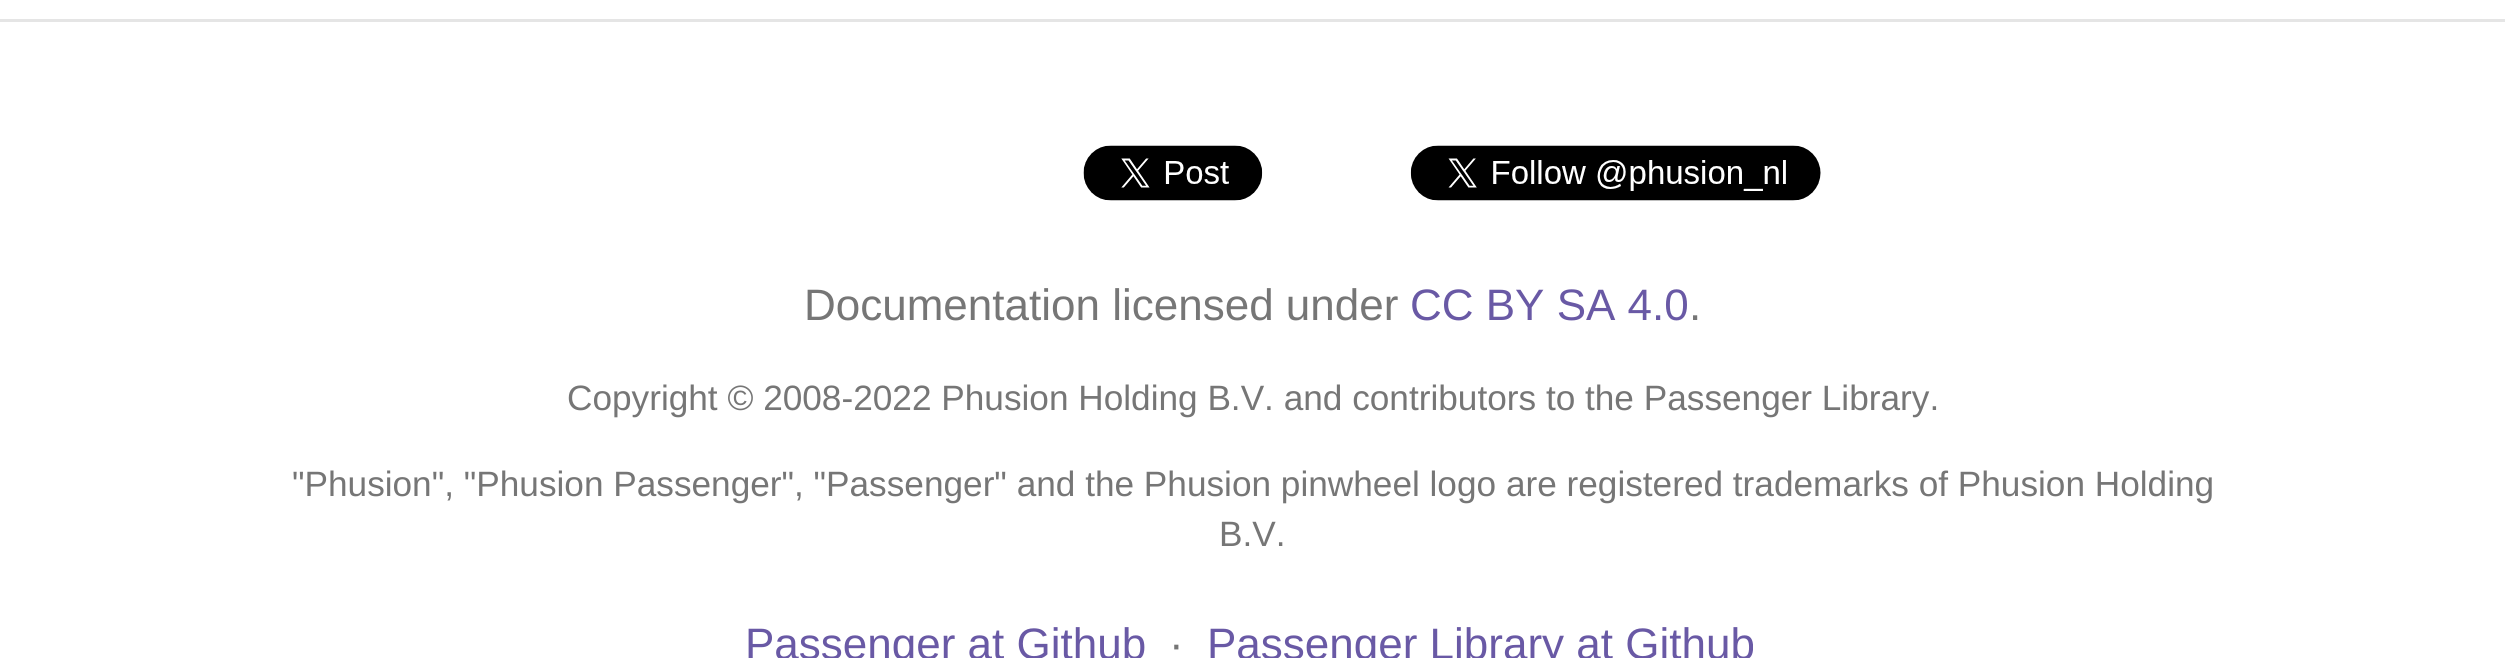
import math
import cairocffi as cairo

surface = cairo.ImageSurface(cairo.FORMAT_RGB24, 2505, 658)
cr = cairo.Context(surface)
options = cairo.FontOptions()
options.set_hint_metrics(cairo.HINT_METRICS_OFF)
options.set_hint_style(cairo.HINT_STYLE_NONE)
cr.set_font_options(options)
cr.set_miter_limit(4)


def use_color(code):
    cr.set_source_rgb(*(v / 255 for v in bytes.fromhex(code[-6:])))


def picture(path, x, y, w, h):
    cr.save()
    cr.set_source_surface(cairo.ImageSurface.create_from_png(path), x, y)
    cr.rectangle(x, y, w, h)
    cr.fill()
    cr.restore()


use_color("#ffffff")
cr.paint()
use_color("#e5e5e5")
cr.rectangle(0, 19, 2505, 3)
cr.fill()
picture("img1.png", 1083, 145, 180, 56)
picture("img2.png", 1410, 145, 411, 56)
cr.select_font_face("Liberation Sans")
cr.set_font_size(44)
use_color("#767676")
cr.move_to(804, 320)
cr.show_text("Documentation licensed under")
use_color("#6959a5")
cr.move_to(1410, 320)
cr.show_text("CC BY SA 4.0")
use_color("#767676")
cr.move_to(1689, 320)
cr.show_text(".")
cr.set_font_size(35.2)
cr.move_to(567, 410)
cr.show_text("Copyright © 2008-2022 Phusion Holding B.V. and contributors to the Passenger Library.")
cr.move_to(292, 496)
cr.show_text("\"Phusion\", \"Phusion Passenger\", \"Passenger\" and the Phusion pinwheel logo are registered trademarks of Phusion Holding")
cr.move_to(1219, 546)
cr.show_text("B.V.")
cr.set_font_size(44)
use_color("#6959a5")
cr.move_to(745, 659)
cr.show_text("Passenger at Github")
use_color("#767676")
cr.move_to(1169, 659)
cr.show_text("·")
use_color("#6959a5")
cr.move_to(1207, 659)
cr.show_text("Passenger Library at Github")
surface.write_to_png("result.png")
